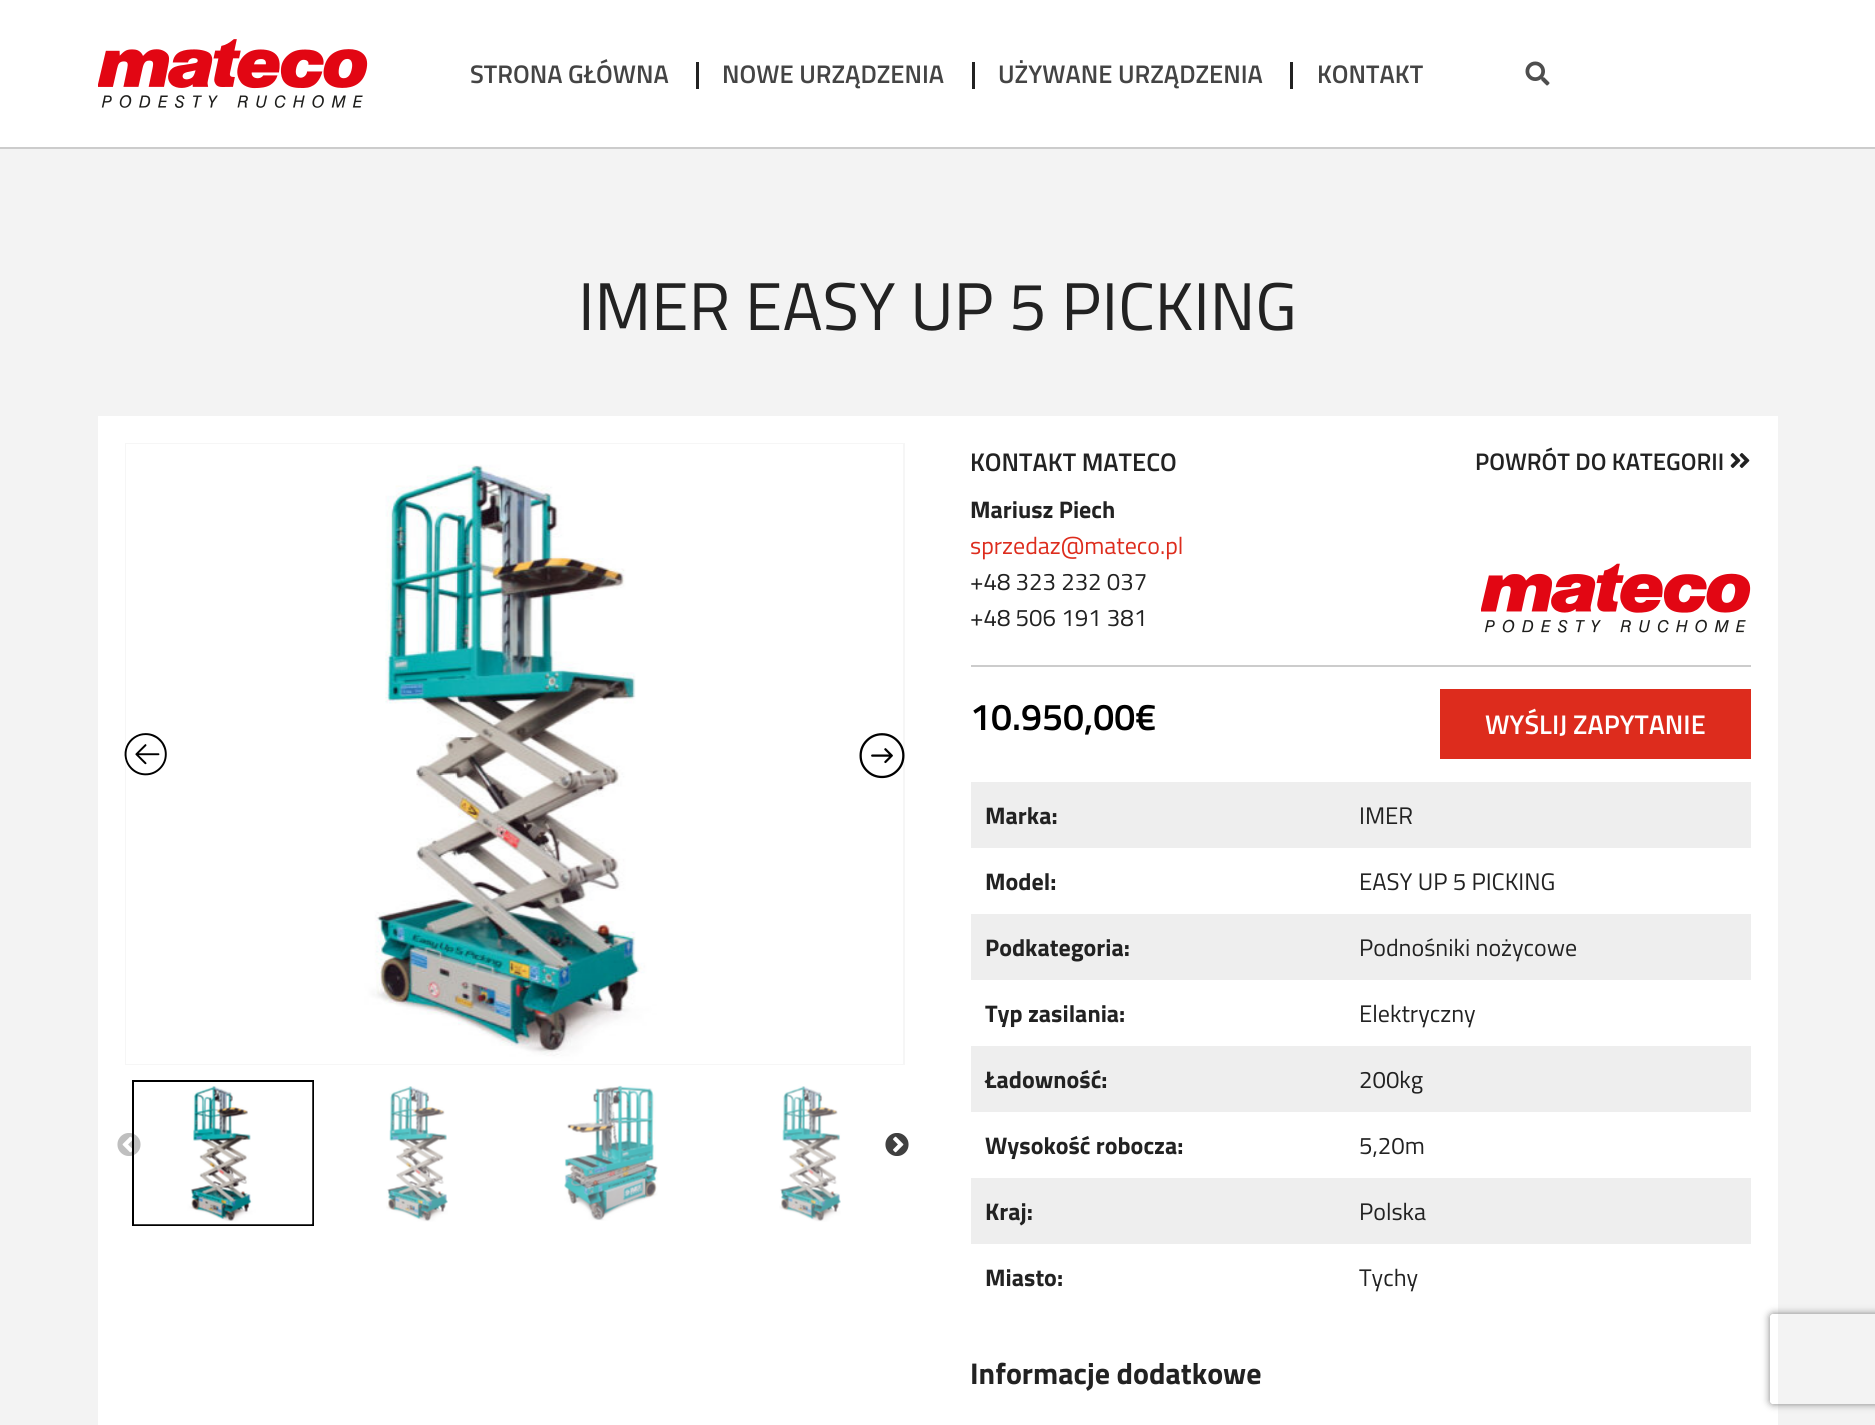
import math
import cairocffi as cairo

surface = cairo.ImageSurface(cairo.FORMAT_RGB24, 1875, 1425)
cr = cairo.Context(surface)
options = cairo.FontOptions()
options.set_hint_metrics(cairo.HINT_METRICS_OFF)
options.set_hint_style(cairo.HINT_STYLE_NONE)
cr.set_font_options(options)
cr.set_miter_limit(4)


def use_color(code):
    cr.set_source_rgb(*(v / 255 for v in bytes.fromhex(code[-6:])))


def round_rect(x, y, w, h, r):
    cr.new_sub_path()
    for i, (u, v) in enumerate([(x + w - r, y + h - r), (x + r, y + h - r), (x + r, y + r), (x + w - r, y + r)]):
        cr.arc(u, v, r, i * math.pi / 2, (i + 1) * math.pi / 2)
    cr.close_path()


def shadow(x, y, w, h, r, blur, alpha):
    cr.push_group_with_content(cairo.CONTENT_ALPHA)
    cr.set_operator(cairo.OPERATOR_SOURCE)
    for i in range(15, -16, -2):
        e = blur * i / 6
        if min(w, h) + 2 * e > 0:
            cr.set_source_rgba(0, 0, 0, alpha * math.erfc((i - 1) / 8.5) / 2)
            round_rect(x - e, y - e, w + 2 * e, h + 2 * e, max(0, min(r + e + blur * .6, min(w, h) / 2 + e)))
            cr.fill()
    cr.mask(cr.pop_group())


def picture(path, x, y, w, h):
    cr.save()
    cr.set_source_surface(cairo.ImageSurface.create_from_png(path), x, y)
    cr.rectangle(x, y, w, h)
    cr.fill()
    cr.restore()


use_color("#f3f3f3")
cr.paint()
use_color("#ffffff")
cr.rectangle(0, 0, 1875, 147)
cr.fill()
use_color("#cccccc")
cr.rectangle(0, 147, 1875, 2)
cr.fill()
picture("img1.png", 98, 39, 270, 69)
cr.select_font_face("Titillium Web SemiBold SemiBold")
cr.set_font_size(25.5)
use_color("#444444")
cr.move_to(470, 83)
cr.show_text("STRONA GŁÓWNA")
use_color("#222222")
cr.rectangle(696, 62, 3, 27)
cr.fill()
use_color("#444444")
cr.move_to(722, 83)
cr.show_text("NOWE URZĄDZENIA")
use_color("#222222")
cr.rectangle(972, 62, 3, 27)
cr.fill()
use_color("#444444")
cr.move_to(998, 83)
cr.show_text("UŻYWANE URZĄDZENIA")
use_color("#222222")
cr.rectangle(1290, 62, 3, 27)
cr.fill()
use_color("#444444")
cr.move_to(1317, 83)
cr.show_text("KONTAKT")
picture("img2.png", 1525, 61, 25, 25)
cr.select_font_face("Titillium Web")
cr.set_font_size(67.5)
use_color("#222222")
cr.move_to(578, 330)
cr.show_text("IMER EASY UP 5 PICKING")
use_color("#ffffff")
cr.rectangle(98, 416, 1680, 1009)
cr.fill()
cr.rectangle(126, 444, 778, 620)
use_color("#f6f6f6")
cr.stroke()
picture("img3.png", 126, 444, 777, 620)
picture("img4.png", 124, 733, 43, 43)
picture("img5.png", 859, 733, 46, 46)
cr.rectangle(133, 1081, 180, 144)
use_color("#000000")
cr.stroke()
picture("img7.png", 134, 1082, 179, 143)
picture("img6.png", 117, 1133, 24, 23)
picture("img8.png", 386, 1086, 62, 136)
picture("img9.png", 564, 1085, 94, 136)
picture("img10.png", 779, 1086, 62, 136)
picture("img11.png", 885, 1133, 24, 23)
use_color("#cccccc")
cr.rectangle(971, 665, 780, 2)
cr.fill()
cr.select_font_face("Titillium Web SemiBold SemiBold")
cr.set_font_size(25.5)
use_color("#222222")
cr.move_to(970, 471)
cr.show_text("KONTAKT MATECO")
cr.select_font_face("Titillium Web", cairo.FONT_SLANT_NORMAL, cairo.FONT_WEIGHT_BOLD)
cr.set_font_size(24)
cr.move_to(970, 518)
cr.show_text("Mariusz Piech")
cr.select_font_face("Titillium Web")
use_color("#dd2c1d")
cr.move_to(970, 554)
cr.show_text("sprzedaz@mateco.pl")
use_color("#222222")
cr.move_to(970, 590)
cr.show_text("+48 323 232 037")
cr.move_to(970, 626)
cr.show_text("+48 506 191 381")
cr.select_font_face("Titillium Web SemiBold SemiBold")
cr.move_to(1475, 470)
cr.show_text("POWRÓT DO KATEGORII")
picture("img12.png", 1730, 453, 20, 15)
picture("img13.png", 1481, 563, 270, 70)
cr.set_font_size(37.5)
use_color("#000000")
cr.move_to(970, 730)
cr.show_text("10.950,00€")
use_color("#dd2c1d")
cr.rectangle(1440, 689, 311, 70)
cr.fill()
cr.set_font_size(27)
use_color("#ffffff")
cr.move_to(1485, 734)
cr.show_text("WYŚLIJ ZAPYTANIE")
use_color("#eeeeee")
cr.rectangle(971, 782, 780, 66)
cr.fill()
cr.select_font_face("Titillium Web", cairo.FONT_SLANT_NORMAL, cairo.FONT_WEIGHT_BOLD)
cr.set_font_size(24)
use_color("#222222")
cr.move_to(985, 824)
cr.show_text("Marka:")
cr.select_font_face("Titillium Web")
cr.move_to(1359, 824)
cr.show_text("IMER")
cr.select_font_face("Titillium Web", cairo.FONT_SLANT_NORMAL, cairo.FONT_WEIGHT_BOLD)
cr.move_to(985, 890)
cr.show_text("Model:")
cr.select_font_face("Titillium Web")
cr.move_to(1359, 890)
cr.show_text("EASY UP 5 PICKING")
use_color("#eeeeee")
cr.rectangle(971, 914, 780, 66)
cr.fill()
cr.select_font_face("Titillium Web", cairo.FONT_SLANT_NORMAL, cairo.FONT_WEIGHT_BOLD)
use_color("#222222")
cr.move_to(985, 956)
cr.show_text("Podkategoria:")
cr.select_font_face("Titillium Web")
cr.move_to(1359, 956)
cr.show_text("Podnośniki nożycowe")
cr.select_font_face("Titillium Web", cairo.FONT_SLANT_NORMAL, cairo.FONT_WEIGHT_BOLD)
cr.move_to(985, 1022)
cr.show_text("Typ zasilania:")
cr.select_font_face("Titillium Web")
cr.move_to(1359, 1022)
cr.show_text("Elektryczny")
use_color("#eeeeee")
cr.rectangle(971, 1046, 780, 66)
cr.fill()
cr.select_font_face("Titillium Web", cairo.FONT_SLANT_NORMAL, cairo.FONT_WEIGHT_BOLD)
use_color("#222222")
cr.move_to(985, 1088)
cr.show_text("Ładowność:")
cr.select_font_face("Titillium Web")
cr.move_to(1359, 1088)
cr.show_text("200kg")
cr.select_font_face("Titillium Web", cairo.FONT_SLANT_NORMAL, cairo.FONT_WEIGHT_BOLD)
cr.move_to(985, 1154)
cr.show_text("Wysokość robocza:")
cr.select_font_face("Titillium Web")
cr.move_to(1359, 1154)
cr.show_text("5,20m")
use_color("#eeeeee")
cr.rectangle(971, 1178, 780, 66)
cr.fill()
cr.select_font_face("Titillium Web", cairo.FONT_SLANT_NORMAL, cairo.FONT_WEIGHT_BOLD)
use_color("#222222")
cr.move_to(985, 1220)
cr.show_text("Kraj:")
cr.select_font_face("Titillium Web")
cr.move_to(1359, 1220)
cr.show_text("Polska")
cr.select_font_face("Titillium Web", cairo.FONT_SLANT_NORMAL, cairo.FONT_WEIGHT_BOLD)
cr.move_to(985, 1286)
cr.show_text("Miasto:")
cr.select_font_face("Titillium Web")
cr.move_to(1359, 1286)
cr.show_text("Tychy")
cr.select_font_face("Titillium Web", cairo.FONT_SLANT_NORMAL, cairo.FONT_WEIGHT_BOLD)
cr.set_font_size(30)
cr.move_to(970, 1384)
cr.show_text("Informacje dodatkowe")
cr.save()
cr.set_fill_rule(cairo.FILL_RULE_EVEN_ODD)
cr.new_path()
cr.move_to(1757, 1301)
cr.line_to(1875, 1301)
cr.line_to(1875, 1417)
cr.line_to(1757, 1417)
cr.close_path()
cr.move_to(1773, 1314)
cr.line_to(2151, 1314)
cr.curve_to(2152.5, 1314, 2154, 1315.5, 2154, 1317)
cr.line_to(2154, 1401)
cr.curve_to(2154, 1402.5, 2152.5, 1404, 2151, 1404)
cr.line_to(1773, 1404)
cr.curve_to(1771.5, 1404, 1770, 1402.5, 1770, 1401)
cr.line_to(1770, 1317)
cr.curve_to(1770, 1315.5, 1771.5, 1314, 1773, 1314)
cr.close_path()
cr.clip()
use_color("#808080")
shadow(1770, 1314, 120, 90, 3, 4, 1)
cr.restore()
surface.write_to_png("result.png")
